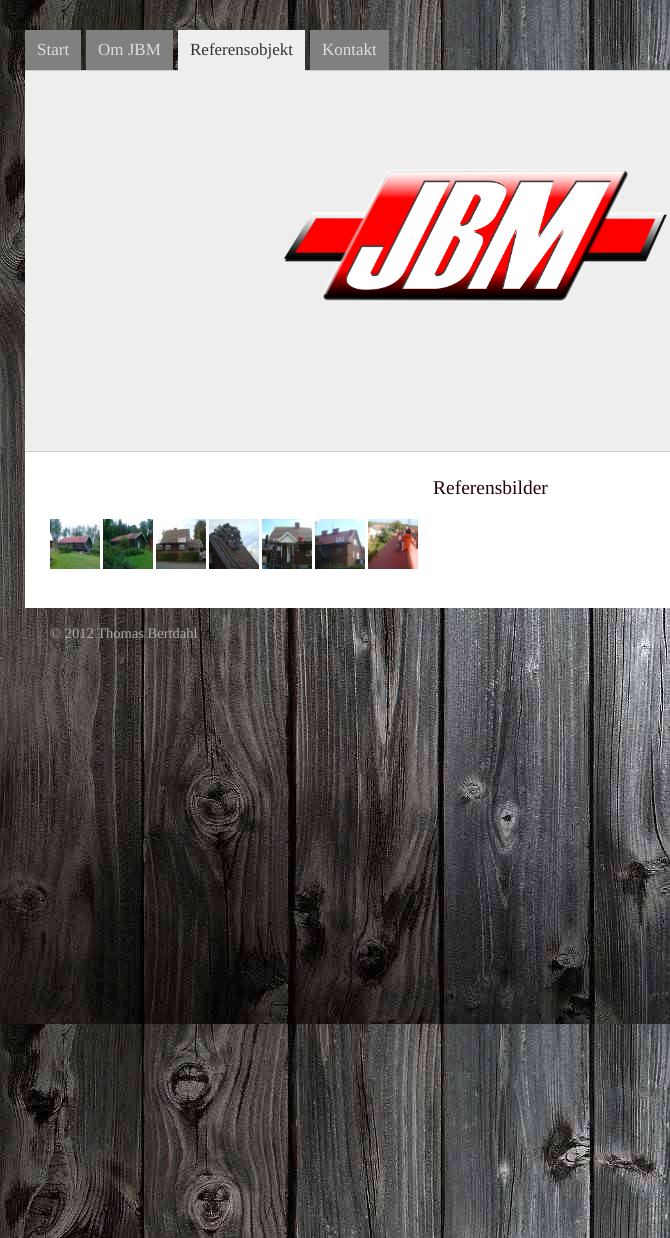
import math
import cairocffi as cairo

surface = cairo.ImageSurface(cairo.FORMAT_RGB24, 670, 1238)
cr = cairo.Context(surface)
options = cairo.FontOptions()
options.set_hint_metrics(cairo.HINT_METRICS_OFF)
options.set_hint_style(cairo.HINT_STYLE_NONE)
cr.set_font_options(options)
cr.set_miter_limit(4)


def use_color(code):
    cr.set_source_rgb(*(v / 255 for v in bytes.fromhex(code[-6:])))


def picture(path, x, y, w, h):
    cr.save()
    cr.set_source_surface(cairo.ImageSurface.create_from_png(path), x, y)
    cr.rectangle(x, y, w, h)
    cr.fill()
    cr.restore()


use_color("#ffffff")
cr.paint()
picture("img1.png", 0, 0, 670, 1238)
use_color("#808080")
cr.rectangle(25, 30, 56, 40)
cr.fill()
cr.select_font_face("Liberation Serif")
cr.set_font_size(17)
use_color("#dddddd")
cr.move_to(37, 55)
cr.show_text("Start")
use_color("#808080")
cr.rectangle(86, 30, 87, 40)
cr.fill()
use_color("#dddddd")
cr.move_to(98, 55)
cr.show_text("Om JBM")
use_color("#cccccc")
cr.rectangle(25, 70, 645, 1)
cr.fill()
use_color("#eeeeee")
cr.rectangle(178, 30, 127, 41)
cr.fill()
use_color("#333333")
cr.move_to(190, 55)
cr.show_text("Referensobjekt")
use_color("#808080")
cr.rectangle(310, 30, 79, 40)
cr.fill()
use_color("#dddddd")
cr.move_to(322, 55)
cr.show_text("Kontakt")
use_color("#eeeeee")
cr.rectangle(25, 71, 645, 380)
cr.fill()
use_color("#cccccc")
cr.rectangle(25, 451, 645, 1)
cr.fill()
picture("img2.png", 284, 169, 383, 133)
use_color("#ffffff")
cr.rectangle(25, 452, 645, 156)
cr.fill()
cr.set_font_size(19.5)
use_color("#260206")
cr.move_to(433, 494)
cr.show_text("Referensbilder")
picture("img3.png", 50, 519, 50, 50)
picture("img4.png", 103, 519, 50, 50)
picture("img5.png", 156, 519, 50, 50)
picture("img6.png", 209, 519, 50, 50)
picture("img7.png", 262, 519, 50, 50)
picture("img8.png", 315, 519, 50, 50)
picture("img9.png", 368, 519, 50, 50)
cr.set_font_size(14.5)
use_color("#aaaaaa")
cr.move_to(50, 638)
cr.show_text("© 2012 Thomas Bertdahl")
surface.write_to_png("result.png")
